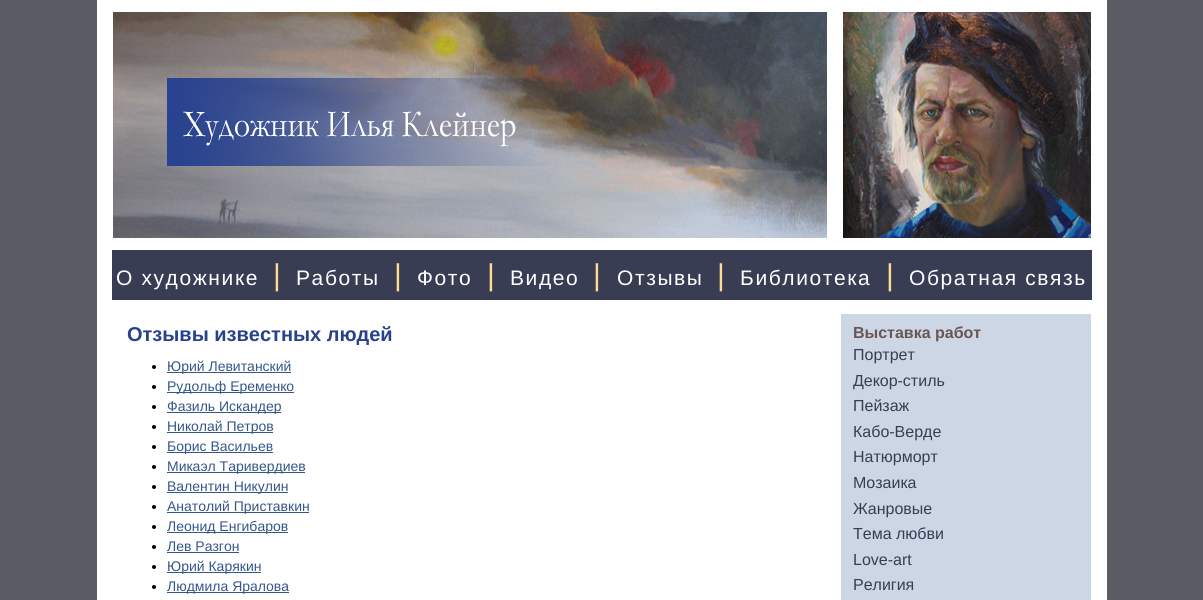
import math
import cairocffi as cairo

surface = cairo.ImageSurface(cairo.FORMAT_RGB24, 1203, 600)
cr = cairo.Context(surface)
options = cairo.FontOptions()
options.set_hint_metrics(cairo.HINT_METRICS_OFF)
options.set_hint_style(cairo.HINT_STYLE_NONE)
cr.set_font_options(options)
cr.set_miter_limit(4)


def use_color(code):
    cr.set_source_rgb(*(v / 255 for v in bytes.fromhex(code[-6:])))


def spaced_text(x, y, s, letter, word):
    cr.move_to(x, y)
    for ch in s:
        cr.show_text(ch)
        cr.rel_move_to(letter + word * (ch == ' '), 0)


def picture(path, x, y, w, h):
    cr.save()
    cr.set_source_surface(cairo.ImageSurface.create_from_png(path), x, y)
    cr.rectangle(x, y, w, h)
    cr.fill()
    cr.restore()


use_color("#595d63")
cr.paint()
use_color("#ffffff")
cr.rectangle(97, 0, 1010, 600)
cr.fill()
picture("img1.png", 112, 8, 979, 232)
use_color("#393d54")
cr.rectangle(112, 250, 980, 50)
cr.fill()
cr.select_font_face("Liberation Sans")
cr.set_font_size(21)
use_color("#ffffff")
spaced_text(116, 285, "О художнике", 1.6, 0)
cr.set_font_size(30)
use_color("#ffdc8f")
spaced_text(273, 285, "|", 1.6, 0)
cr.set_font_size(21)
use_color("#ffffff")
spaced_text(296, 285, "Работы", 1.6, 0)
cr.set_font_size(30)
use_color("#ffdc8f")
spaced_text(394, 285, "|", 1.6, 0)
cr.set_font_size(21)
use_color("#ffffff")
spaced_text(417, 285, "Фото", 1.6, 0)
cr.set_font_size(30)
use_color("#ffdc8f")
spaced_text(487, 285, "|", 1.6, 0)
cr.set_font_size(21)
use_color("#ffffff")
spaced_text(510, 285, "Видео", 1.6, 0)
cr.set_font_size(30)
use_color("#ffdc8f")
spaced_text(593, 285, "|", 1.6, 0)
cr.set_font_size(21)
use_color("#ffffff")
spaced_text(617, 285, "Отзывы", 1.6, 0)
cr.set_font_size(30)
use_color("#ffdc8f")
spaced_text(717, 285, "|", 1.6, 0)
cr.set_font_size(21)
use_color("#ffffff")
spaced_text(740, 285, "Библиотека", 1.6, 0)
cr.set_font_size(30)
use_color("#ffdc8f")
spaced_text(886, 285, "|", 1.6, 0)
cr.set_font_size(21)
use_color("#ffffff")
spaced_text(909, 285, "Обратная связь", 1.6, 0)
cr.select_font_face("Liberation Sans", cairo.FONT_SLANT_NORMAL, cairo.FONT_WEIGHT_BOLD)
cr.set_font_size(20)
use_color("#27418b")
cr.move_to(127, 341)
cr.show_text("Отзывы известных людей")
use_color("#000000")
cr.new_path()
cr.arc(154, 367, 2, 0, 2 * math.pi)
cr.fill()
use_color("#34578b")
cr.rectangle(167, 372, 124, 1)
cr.fill()
cr.select_font_face("Liberation Sans")
cr.set_font_size(14)
cr.move_to(167, 371)
cr.show_text("Юрий Левитанский")
use_color("#000000")
cr.new_path()
cr.arc(154, 387, 2, 0, 2 * math.pi)
cr.fill()
use_color("#34578b")
cr.rectangle(167, 392, 127, 1)
cr.fill()
cr.move_to(167, 391)
cr.show_text("Рудольф Еременко")
use_color("#000000")
cr.new_path()
cr.arc(154, 407, 2, 0, 2 * math.pi)
cr.fill()
use_color("#34578b")
cr.rectangle(167, 412, 114, 1)
cr.fill()
cr.move_to(167, 411)
cr.show_text("Фазиль Искандер")
use_color("#000000")
cr.new_path()
cr.arc(154, 427, 2, 0, 2 * math.pi)
cr.fill()
use_color("#34578b")
cr.rectangle(167, 432, 106, 1)
cr.fill()
cr.move_to(167, 431)
cr.show_text("Николай Петров")
use_color("#000000")
cr.new_path()
cr.arc(154, 447, 2, 0, 2 * math.pi)
cr.fill()
use_color("#34578b")
cr.rectangle(167, 452, 106, 1)
cr.fill()
cr.move_to(167, 451)
cr.show_text("Борис Васильев")
use_color("#000000")
cr.new_path()
cr.arc(154, 467, 2, 0, 2 * math.pi)
cr.fill()
use_color("#34578b")
cr.rectangle(167, 472, 138, 1)
cr.fill()
cr.move_to(167, 471)
cr.show_text("Микаэл Таривердиев")
use_color("#000000")
cr.new_path()
cr.arc(154, 487, 2, 0, 2 * math.pi)
cr.fill()
use_color("#34578b")
cr.rectangle(167, 492, 121, 1)
cr.fill()
cr.move_to(167, 491)
cr.show_text("Валентин Никулин")
use_color("#000000")
cr.new_path()
cr.arc(154, 507, 2, 0, 2 * math.pi)
cr.fill()
use_color("#34578b")
cr.rectangle(167, 512, 142, 1)
cr.fill()
cr.move_to(167, 511)
cr.show_text("Анатолий Приставкин")
use_color("#000000")
cr.new_path()
cr.arc(154, 527, 2, 0, 2 * math.pi)
cr.fill()
use_color("#34578b")
cr.rectangle(167, 532, 121, 1)
cr.fill()
cr.move_to(167, 531)
cr.show_text("Леонид Енгибаров")
use_color("#000000")
cr.new_path()
cr.arc(154, 547, 2, 0, 2 * math.pi)
cr.fill()
use_color("#34578b")
cr.move_to(167, 551)
cr.show_text("Лев Разгон")
cr.rectangle(167, 552, 72, 1)
cr.fill()
use_color("#000000")
cr.arc(154, 567, 2, 0, 2 * math.pi)
cr.fill()
use_color("#34578b")
cr.rectangle(167, 572, 94, 1)
cr.fill()
cr.move_to(167, 571)
cr.show_text("Юрий Карякин")
use_color("#000000")
cr.new_path()
cr.arc(154, 587, 2, 0, 2 * math.pi)
cr.fill()
use_color("#34578b")
cr.rectangle(167, 592, 122, 1)
cr.fill()
cr.move_to(167, 591)
cr.show_text("Людмила Яралова")
use_color("#cdd6e5")
cr.rectangle(841, 314, 250, 286)
cr.fill()
cr.select_font_face("Liberation Sans", cairo.FONT_SLANT_NORMAL, cairo.FONT_WEIGHT_BOLD)
cr.set_font_size(16)
use_color("#685754")
cr.move_to(853, 338)
cr.show_text("Выставка работ")
cr.select_font_face("Liberation Sans")
use_color("#393d54")
cr.move_to(853, 360)
cr.show_text("Портрет")
cr.move_to(853, 386)
cr.show_text("Декор-стиль")
cr.move_to(853, 411)
cr.show_text("Пейзаж")
cr.move_to(853, 437)
cr.show_text("Кабо-Верде")
cr.move_to(853, 462)
cr.show_text("Натюрморт")
cr.move_to(853, 488)
cr.show_text("Мозаика")
cr.move_to(853, 514)
cr.show_text("Жанровые")
cr.move_to(853, 539)
cr.show_text("Тема любви")
cr.move_to(853, 565)
cr.show_text("Love-art")
cr.move_to(853, 590)
cr.show_text("Религия")
surface.write_to_png("result.png")
